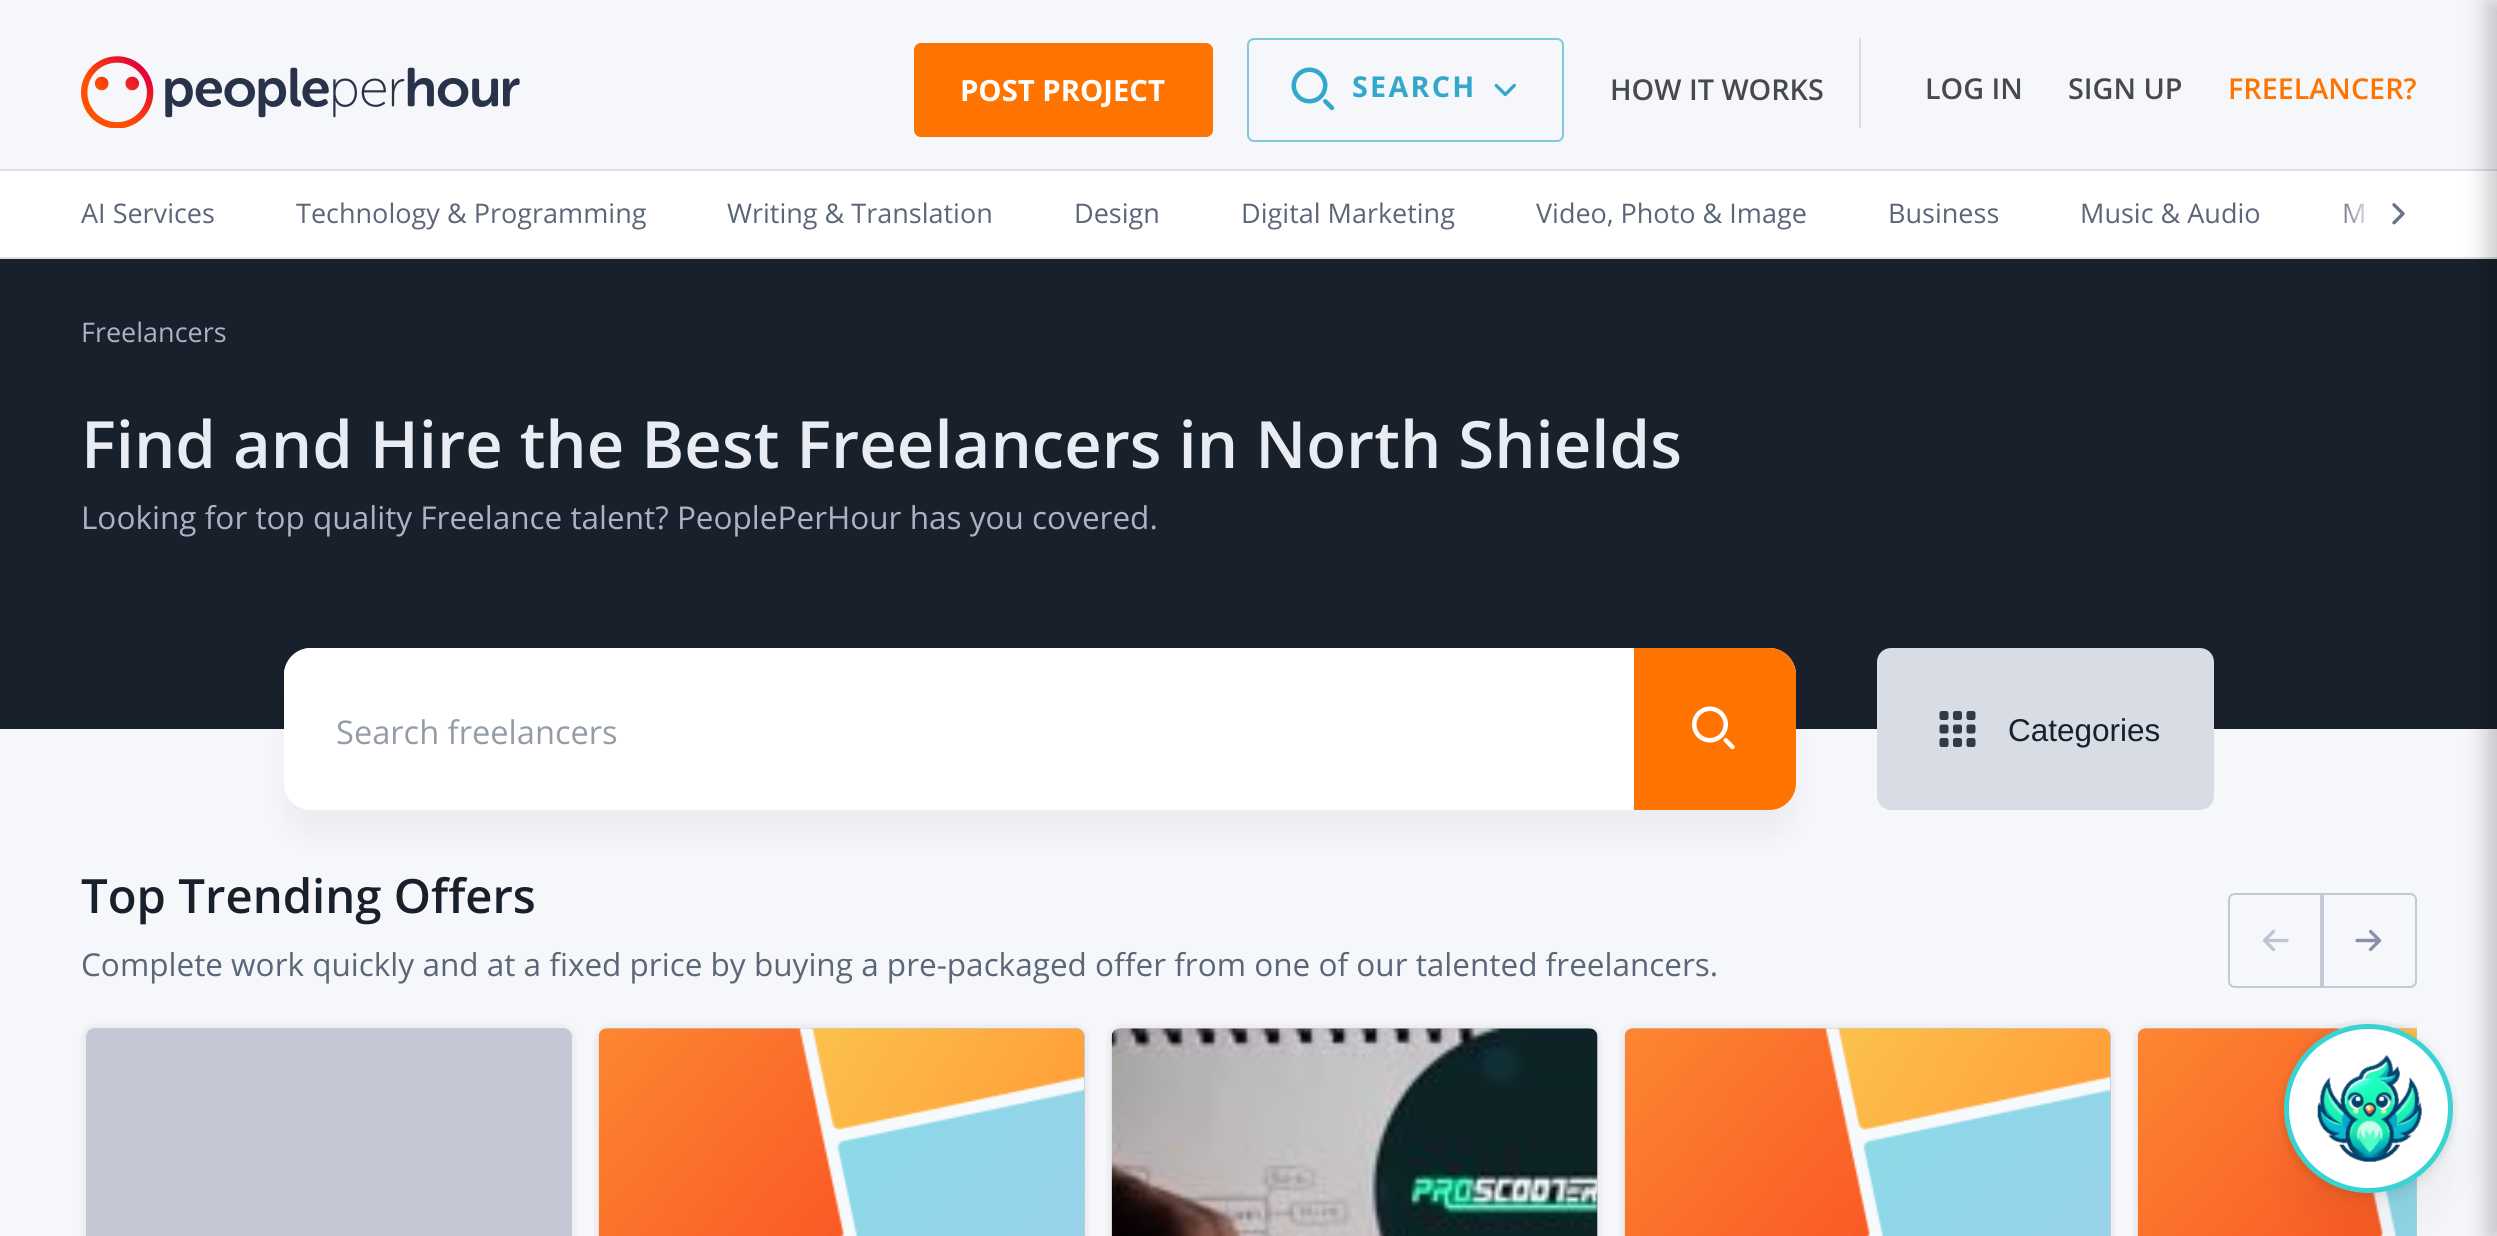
import math
import cairocffi as cairo

surface = cairo.ImageSurface(cairo.FORMAT_RGB24, 2497, 1236)
cr = cairo.Context(surface)
options = cairo.FontOptions()
options.set_hint_metrics(cairo.HINT_METRICS_OFF)
options.set_hint_style(cairo.HINT_STYLE_NONE)
cr.set_font_options(options)
cr.set_miter_limit(4)


def use_color(code):
    cr.set_source_rgb(*(v / 255 for v in bytes.fromhex(code[-6:])))


def spaced_text(x, y, s, letter, word):
    cr.move_to(x, y)
    for ch in s:
        cr.show_text(ch)
        cr.rel_move_to(letter + word * (ch == ' '), 0)


def round_rect(x, y, w, h, r):
    cr.new_sub_path()
    for i, (u, v) in enumerate([(x + w - r, y + h - r), (x + r, y + h - r), (x + r, y + r), (x + w - r, y + r)]):
        cr.arc(u, v, r, i * math.pi / 2, (i + 1) * math.pi / 2)
    cr.close_path()


def shadow(x, y, w, h, r, blur, alpha):
    cr.push_group_with_content(cairo.CONTENT_ALPHA)
    cr.set_operator(cairo.OPERATOR_SOURCE)
    for i in range(15, -16, -2):
        e = blur * i / 6
        if min(w, h) + 2 * e > 0:
            cr.set_source_rgba(0, 0, 0, alpha * math.erfc((i - 1) / 8.5) / 2)
            round_rect(x - e, y - e, w + 2 * e, h + 2 * e, max(0, min(r + e + blur * .6, min(w, h) / 2 + e)))
            cr.fill()
    cr.mask(cr.pop_group())


def picture(path, x, y, w, h):
    cr.save()
    cr.set_source_surface(cairo.ImageSurface.create_from_png(path), x, y)
    cr.rectangle(x, y, w, h)
    cr.fill()
    cr.restore()


use_color("#f5f7fa")
cr.paint()
picture("img1.png", 81, 56, 439, 72)
use_color("#ff7300")
round_rect(915, 44, 297, 92, 6)
cr.fill_preserve()
cr.stroke()
cr.select_font_face("Open Sans", cairo.FONT_SLANT_NORMAL, cairo.FONT_WEIGHT_BOLD)
cr.set_font_size(29.25)
use_color("#ffffff")
cr.move_to(960, 101)
cr.show_text("POST PROJECT")
round_rect(1248, 39, 315, 102, 6)
use_color("#81c8dd")
cr.stroke()
picture("img2.png", 1291, 67, 44, 44)
cr.set_font_size(28.75)
use_color("#34a8ca")
spaced_text(1352, 97, "SEARCH", 2.25, 0)
picture("img3.png", 1494, 83, 22, 14)
cr.select_font_face("Open Sans SemiBold")
use_color("#47494f")
cr.move_to(1610, 100)
cr.show_text("HOW IT WORKS")
use_color("#dddee1")
cr.rectangle(1859, 38, 2, 90)
cr.fill()
use_color("#47494f")
cr.move_to(1925, 99)
cr.show_text("LOG IN")
cr.move_to(2068, 99)
cr.show_text("SIGN UP")
use_color("#ff7300")
cr.move_to(2228, 99)
cr.show_text("FREELANCER?")
use_color("#18202b")
cr.rectangle(0, 259, 2497, 470)
cr.fill()
use_color("#32353b")
shadow(2, 176, 2493, 85, 0, 2, 0.15)
use_color("#ffffff")
cr.rectangle(0, 171, 2497, 86)
cr.fill()
use_color("#dddee1")
cr.rectangle(0, 169, 2497, 2)
cr.fill()
cr.rectangle(0, 257, 2497, 2)
cr.fill()
cr.select_font_face("Open Sans")
cr.set_font_size(27)
use_color("#5b6678")
cr.move_to(81, 223)
cr.show_text("AI Services")
cr.move_to(296, 223)
cr.show_text("Technology & Programming")
cr.move_to(727, 223)
cr.show_text("Writing & Translation")
cr.move_to(1074, 223)
cr.show_text("Design")
cr.move_to(1241, 223)
cr.show_text("Digital Marketing")
cr.move_to(1536, 223)
cr.show_text("Video, Photo & Image")
cr.move_to(1888, 223)
cr.show_text("Business")
cr.move_to(2080, 223)
cr.show_text("Music & Audio")
cr.move_to(2342, 223)
cr.show_text("M")
gradient = cairo.LinearGradient(2417, 214, 2336, 214)
gradient.add_color_stop_rgba(0.5, 1, 1, 1, 1)
gradient.add_color_stop_rgba(1, 1, 1, 1, 0)
cr.set_source(gradient)
cr.rectangle(2344, 203, 20, 20)
cr.fill()
picture("img4.png", 2392, 203, 13, 22)
use_color("#abb2c4")
cr.move_to(81, 342)
cr.show_text("Freelancers")
cr.select_font_face("Open Sans SemiBold")
cr.set_font_size(65.25)
use_color("#e9ecf2")
cr.move_to(81, 468)
cr.show_text("Find and Hire the Best Freelancers in North Shields")
cr.select_font_face("Open Sans")
cr.set_font_size(31.5)
use_color("#abb2c4")
cr.move_to(81, 529)
cr.show_text("Looking for top quality Freelance talent? PeoplePerHour has you covered.")
use_color("#000000")
shadow(284, 675, 1512, 162, 27, 13.5, 0.04)
use_color("#ffffff")
round_rect(284, 648, 1512, 162, 27)
cr.fill()
round_rect(284, 648, 1282, 162, 27)
cr.fill()
cr.set_font_size(32.6)
use_color("#949ca7")
cr.move_to(336, 744)
cr.show_text("Search freelancers")
use_color("#ff7300")
cr.new_path()
cr.move_to(1634, 648)
cr.line_to(1769, 648)
cr.curve_to(1784, 648, 1796, 660, 1796, 675)
cr.line_to(1796, 783)
cr.curve_to(1796, 798, 1784, 810, 1769, 810)
cr.line_to(1634, 810)
cr.close_path()
cr.fill()
picture("img5.png", 1692, 706, 43, 44)
use_color("#d8dce5")
round_rect(1877, 648, 337, 162, 14)
cr.fill()
picture("img6.png", 1939, 711, 37, 36)
cr.select_font_face("Liberation Sans")
cr.set_font_size(31.5)
use_color("#18202b")
cr.move_to(2008, 741)
cr.show_text("Categories")
cr.select_font_face("Open Sans SemiBold")
cr.set_font_size(47.25)
cr.move_to(81, 913)
cr.show_text("Top Trending Offers")
cr.select_font_face("Open Sans")
cr.set_font_size(31.5)
use_color("#5b6678")
cr.move_to(81, 976)
cr.show_text("Complete work quickly and at a fixed price by buying a pre-packaged offer from one of our talented freelancers.")
cr.new_path()
cr.move_to(2235, 894)
cr.line_to(2321, 894)
cr.line_to(2321, 987)
cr.line_to(2235, 987)
cr.curve_to(2231.5, 987, 2229, 984.5, 2229, 981)
cr.line_to(2229, 900)
cr.curve_to(2229, 896.5, 2231.5, 894, 2235, 894)
cr.close_path()
use_color("#c3c8d4")
cr.stroke()
picture("img7.png", 2262, 929, 27, 23)
cr.new_path()
cr.move_to(2323, 894)
cr.line_to(2410, 894)
cr.curve_to(2413.5, 894, 2416, 896.5, 2416, 900)
cr.line_to(2416, 981)
cr.curve_to(2416, 984.5, 2413.5, 987, 2410, 987)
cr.line_to(2323, 987)
cr.close_path()
cr.stroke()
picture("img8.png", 2355, 929, 27, 23)
use_color("#000000")
shadow(81, 1024, 495, 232, 14, 2, 0.04)
use_color("#c3c8d4")
cr.new_path()
cr.move_to(95, 1028)
cr.line_to(563, 1028)
cr.curve_to(568, 1028, 572, 1032, 572, 1037)
cr.line_to(572, 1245)
cr.line_to(86, 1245)
cr.line_to(86, 1037)
cr.curve_to(86, 1032, 90, 1028, 95, 1028)
cr.close_path()
cr.fill()
use_color("#000000")
shadow(594, 1024, 495, 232, 14, 2, 0.04)
use_color("#c3c8d4")
cr.new_path()
cr.move_to(608, 1028)
cr.line_to(1076, 1028)
cr.curve_to(1081, 1028, 1085, 1032, 1085, 1037)
cr.line_to(1085, 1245)
cr.line_to(599, 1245)
cr.line_to(599, 1037)
cr.curve_to(599, 1032, 603, 1028, 608, 1028)
cr.close_path()
cr.fill()
picture("img9.png", 598, 1028, 487, 208)
use_color("#000000")
shadow(1107, 1024, 495, 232, 14, 2, 0.04)
use_color("#c3c8d4")
cr.new_path()
cr.move_to(1121, 1028)
cr.line_to(1589, 1028)
cr.curve_to(1594, 1028, 1598, 1032, 1598, 1037)
cr.line_to(1598, 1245)
cr.line_to(1112, 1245)
cr.line_to(1112, 1037)
cr.curve_to(1112, 1032, 1116, 1028, 1121, 1028)
cr.close_path()
cr.fill()
picture("img10.png", 1111, 1028, 487, 208)
use_color("#000000")
shadow(1620, 1024, 495, 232, 14, 2, 0.04)
use_color("#c3c8d4")
cr.new_path()
cr.move_to(1634, 1028)
cr.line_to(2102, 1028)
cr.curve_to(2107, 1028, 2111, 1032, 2111, 1037)
cr.line_to(2111, 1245)
cr.line_to(1625, 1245)
cr.line_to(1625, 1037)
cr.curve_to(1625, 1032, 1629, 1028, 1634, 1028)
cr.close_path()
cr.fill()
picture("img11.png", 1624, 1028, 487, 208)
cr.save()
cr.rectangle(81, 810, 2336, 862)
cr.clip()
use_color("#000000")
shadow(2133, 1024, 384, 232, 14, 2, 0.04)
cr.restore()
cr.new_path()
cr.move_to(2147, 1028)
cr.line_to(2417, 1028)
cr.line_to(2417, 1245)
cr.line_to(2138, 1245)
cr.line_to(2138, 1037)
cr.curve_to(2138, 1032, 2142, 1028, 2147, 1028)
cr.close_path()
cr.fill()
picture("img12.png", 2137, 1028, 280, 208)
use_color("#000000")
shadow(2486, 0, 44, 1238, 0, 11, 0.2)
shadow(2284, 1071, 169, 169, 84.5, 23.5, 0.04)
shadow(2284, 1035, 169, 169, 84.5, 5.5, 0.04)
shadow(2279, 1019, 178, 178, 89, 2, 0.04)
use_color("#ffffff")
cr.arc(2368.5, 1108.5, 82, 0, 2 * math.pi)
cr.fill_preserve()
use_color("#38d3d2")
cr.set_line_width(5)
cr.stroke()
picture("img13.png", 2317, 1054, 105, 108)
surface.write_to_png("result.png")
